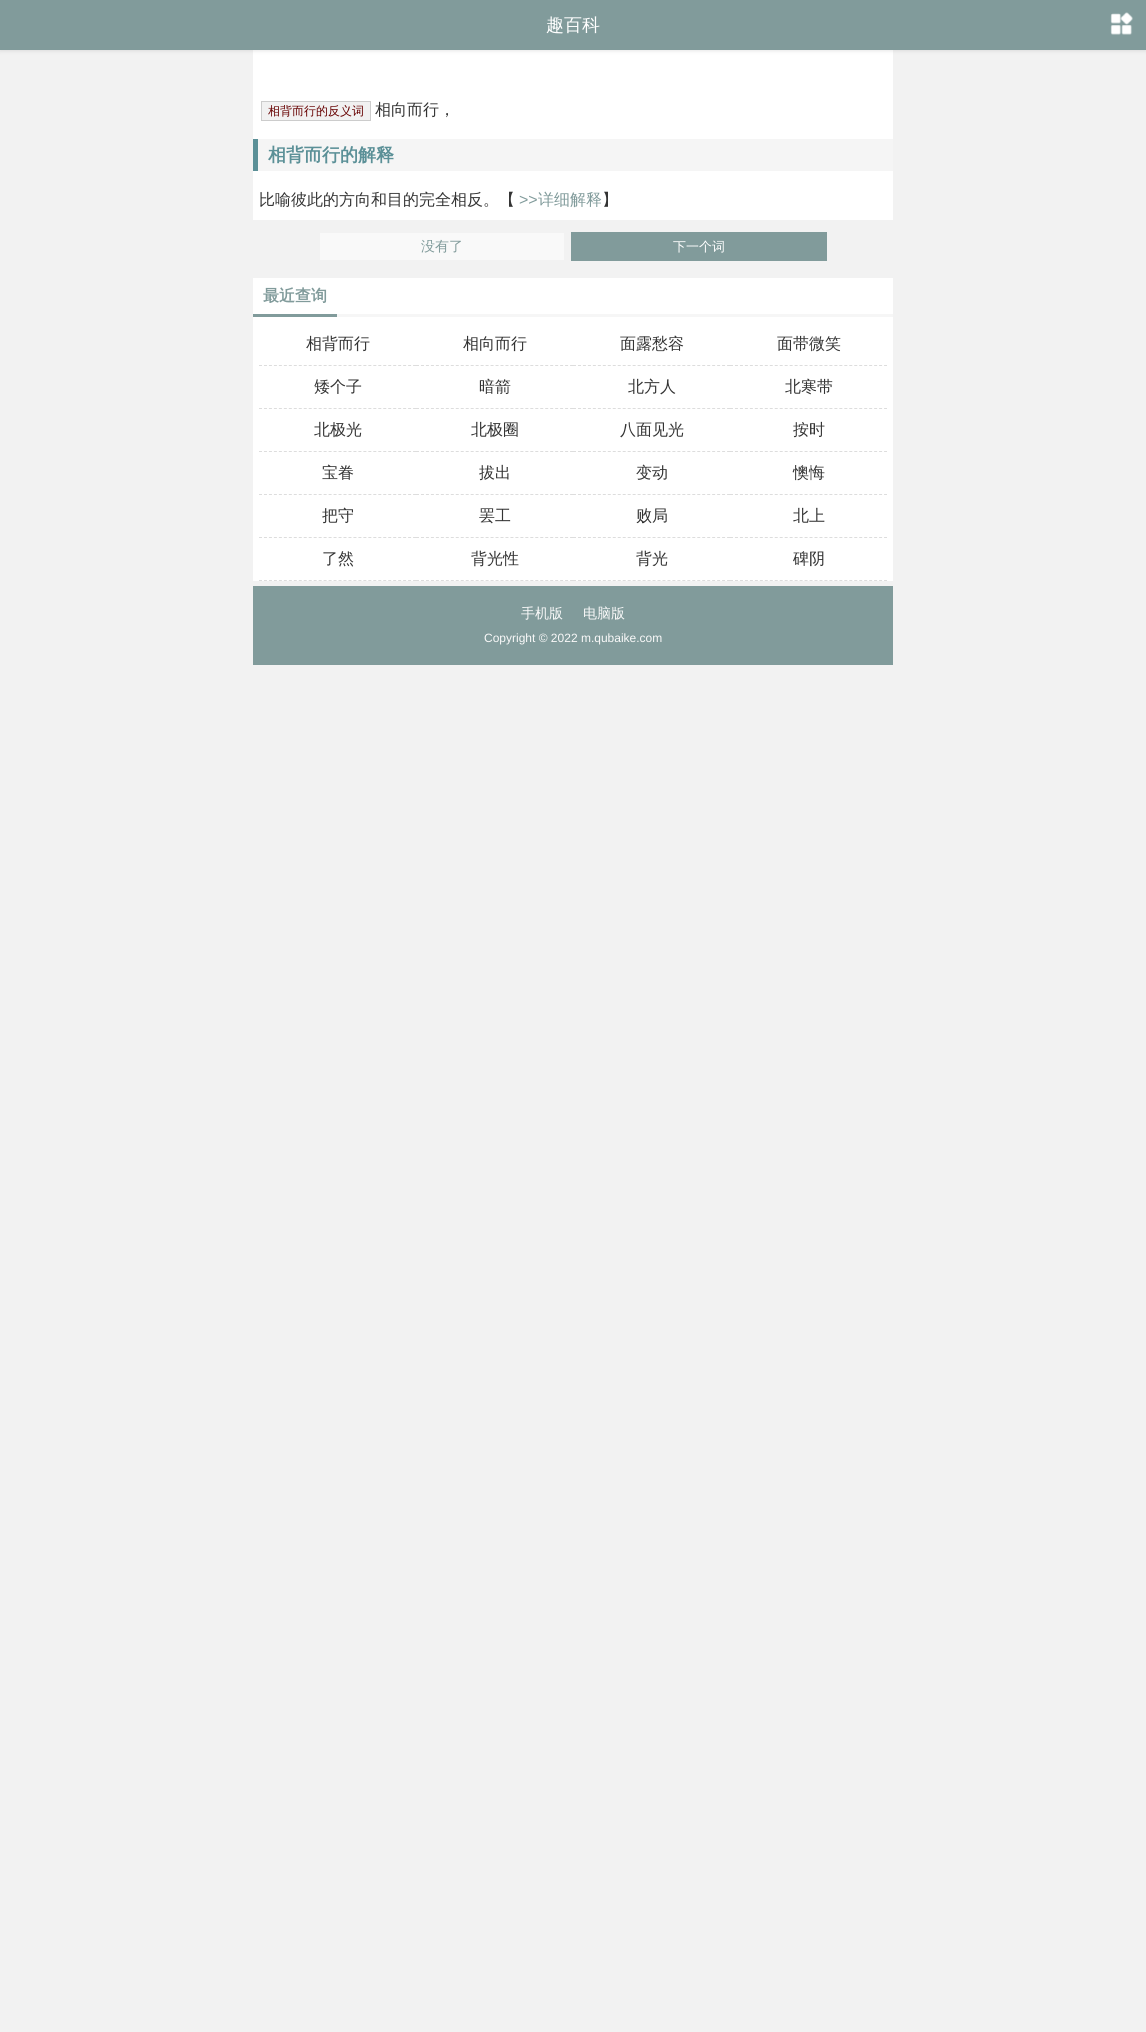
import math
import cairocffi as cairo

surface = cairo.ImageSurface(cairo.FORMAT_RGB24, 1146, 2032)
cr = cairo.Context(surface)
options = cairo.FontOptions()
options.set_hint_metrics(cairo.HINT_METRICS_OFF)
options.set_hint_style(cairo.HINT_STYLE_NONE)
cr.set_font_options(options)
cr.set_miter_limit(4)


def use_color(code):
    cr.set_source_rgb(*(v / 255 for v in bytes.fromhex(code[-6:])))


def round_rect(x, y, w, h, r):
    cr.new_sub_path()
    for i, (u, v) in enumerate([(x + w - r, y + h - r), (x + r, y + h - r), (x + r, y + r), (x + w - r, y + r)]):
        cr.arc(u, v, r, i * math.pi / 2, (i + 1) * math.pi / 2)
    cr.close_path()


def shadow(x, y, w, h, r, blur, alpha):
    cr.push_group_with_content(cairo.CONTENT_ALPHA)
    cr.set_operator(cairo.OPERATOR_SOURCE)
    for i in range(15, -16, -2):
        e = blur * i / 6
        if min(w, h) + 2 * e > 0:
            cr.set_source_rgba(0, 0, 0, alpha * math.erfc((i - 1) / 8.5) / 2)
            round_rect(x - e, y - e, w + 2 * e, h + 2 * e, max(0, min(r + e + blur * .6, min(w, h) / 2 + e)))
            cr.fill()
    cr.mask(cr.pop_group())


def picture(path, x, y, w, h):
    cr.save()
    cr.set_source_surface(cairo.ImageSurface.create_from_png(path), x, y)
    cr.rectangle(x, y, w, h)
    cr.fill()
    cr.restore()


use_color("#f2f2f2")
cr.paint()
use_color("#ffffff")
cr.rectangle(253, 50, 640, 170)
cr.fill()
use_color("#000000")
shadow(0, 1, 1146, 50, 0, 2, 0.1)
use_color("#819b9b")
cr.rectangle(0, 0, 1146, 50)
cr.fill()
cr.select_font_face("WenQuanYi Zen Hei Medium")
cr.set_font_size(18)
use_color("#ffffff")
cr.move_to(546, 31)
cr.show_text("趣百科")
picture("img1.png", 1110, 12, 23, 23)
use_color("#f1f1f1")
cr.rectangle(261.5, 101.5, 109, 19)
cr.fill_preserve()
use_color("#cccccc")
cr.set_line_width(1)
cr.stroke()
cr.set_font_size(12)
use_color("#660000")
cr.move_to(268, 115)
cr.show_text("相背而行的反义词")
cr.set_font_size(16)
use_color("#333333")
cr.move_to(375, 115)
cr.show_text("相向而行，")
use_color("#f5f5f5")
cr.rectangle(258, 139, 635, 32)
cr.fill()
use_color("#5b9097")
cr.rectangle(253, 139, 5, 32)
cr.fill()
cr.select_font_face("WenQuanYi Zen Hei", cairo.FONT_SLANT_NORMAL, cairo.FONT_WEIGHT_BOLD)
cr.set_font_size(18)
cr.move_to(268, 161)
cr.show_text("相背而行的解释")
cr.select_font_face("WenQuanYi Zen Hei Medium")
cr.set_font_size(16)
use_color("#333333")
cr.move_to(259, 205)
cr.show_text("比喻彼此的方向和目的完全相反。【")
cr.select_font_face("Liberation Sans")
use_color("#819b9b")
cr.move_to(519, 205)
cr.show_text(">>")
cr.select_font_face("WenQuanYi Zen Hei Medium")
cr.move_to(538, 205)
cr.show_text("详细解释")
use_color("#333333")
cr.move_to(602, 205)
cr.show_text("】")
use_color("#f9f9f9")
cr.rectangle(320, 233, 244, 27)
cr.fill()
cr.set_font_size(14)
use_color("#819b9b")
cr.move_to(421, 251)
cr.show_text("没有了")
cr.rectangle(571, 232, 256, 29)
cr.fill()
cr.set_font_size(13)
use_color("#ffffff")
cr.move_to(673, 251)
cr.show_text("下一个词")
cr.rectangle(253, 278, 640, 303)
cr.fill()
use_color("#f6f6f6")
cr.rectangle(337, 314, 556, 3)
cr.fill()
use_color("#819b9b")
cr.rectangle(253, 314, 84, 3)
cr.fill()
cr.select_font_face("WenQuanYi Zen Hei", cairo.FONT_SLANT_NORMAL, cairo.FONT_WEIGHT_BOLD)
cr.set_font_size(16)
cr.move_to(263, 301)
cr.show_text("最近查询")
cr.new_path()
cr.move_to(259, 365.5)
cr.line_to(416, 365.5)
use_color("#dddddd")
cr.set_dash([3, 1.97])
cr.stroke()
cr.select_font_face("WenQuanYi Zen Hei Medium")
use_color("#333333")
cr.move_to(306, 349)
cr.show_text("相背而行")
cr.new_path()
cr.move_to(416, 365.5)
cr.line_to(573, 365.5)
use_color("#dddddd")
cr.stroke()
use_color("#333333")
cr.move_to(463, 349)
cr.show_text("相向而行")
cr.new_path()
cr.move_to(573, 365.5)
cr.line_to(730, 365.5)
use_color("#dddddd")
cr.stroke()
use_color("#333333")
cr.move_to(620, 349)
cr.show_text("面露愁容")
cr.new_path()
cr.move_to(730, 365.5)
cr.line_to(887, 365.5)
use_color("#dddddd")
cr.stroke()
use_color("#333333")
cr.move_to(777, 349)
cr.show_text("面带微笑")
cr.new_path()
cr.move_to(259, 408.5)
cr.line_to(416, 408.5)
use_color("#dddddd")
cr.stroke()
use_color("#333333")
cr.move_to(314, 392)
cr.show_text("矮个子")
cr.new_path()
cr.move_to(416, 408.5)
cr.line_to(573, 408.5)
use_color("#dddddd")
cr.stroke()
use_color("#333333")
cr.move_to(479, 392)
cr.show_text("暗箭")
cr.new_path()
cr.move_to(573, 408.5)
cr.line_to(730, 408.5)
use_color("#dddddd")
cr.stroke()
use_color("#333333")
cr.move_to(628, 392)
cr.show_text("北方人")
cr.new_path()
cr.move_to(730, 408.5)
cr.line_to(887, 408.5)
use_color("#dddddd")
cr.stroke()
use_color("#333333")
cr.move_to(785, 392)
cr.show_text("北寒带")
cr.new_path()
cr.move_to(259, 451.5)
cr.line_to(416, 451.5)
use_color("#dddddd")
cr.stroke()
use_color("#333333")
cr.move_to(314, 435)
cr.show_text("北极光")
cr.new_path()
cr.move_to(416, 451.5)
cr.line_to(573, 451.5)
use_color("#dddddd")
cr.stroke()
use_color("#333333")
cr.move_to(471, 435)
cr.show_text("北极圈")
cr.new_path()
cr.move_to(573, 451.5)
cr.line_to(730, 451.5)
use_color("#dddddd")
cr.stroke()
use_color("#333333")
cr.move_to(620, 435)
cr.show_text("八面见光")
cr.new_path()
cr.move_to(730, 451.5)
cr.line_to(887, 451.5)
use_color("#dddddd")
cr.stroke()
use_color("#333333")
cr.move_to(793, 435)
cr.show_text("按时")
cr.new_path()
cr.move_to(259, 494.5)
cr.line_to(416, 494.5)
use_color("#dddddd")
cr.stroke()
use_color("#333333")
cr.move_to(322, 478)
cr.show_text("宝眷")
cr.new_path()
cr.move_to(416, 494.5)
cr.line_to(573, 494.5)
use_color("#dddddd")
cr.stroke()
use_color("#333333")
cr.move_to(479, 478)
cr.show_text("拔出")
cr.new_path()
cr.move_to(573, 494.5)
cr.line_to(730, 494.5)
use_color("#dddddd")
cr.stroke()
use_color("#333333")
cr.move_to(636, 478)
cr.show_text("变动")
cr.new_path()
cr.move_to(730, 494.5)
cr.line_to(887, 494.5)
use_color("#dddddd")
cr.stroke()
use_color("#333333")
cr.move_to(793, 478)
cr.show_text("懊悔")
cr.new_path()
cr.move_to(259, 537.5)
cr.line_to(416, 537.5)
use_color("#dddddd")
cr.stroke()
use_color("#333333")
cr.move_to(322, 521)
cr.show_text("把守")
cr.new_path()
cr.move_to(416, 537.5)
cr.line_to(573, 537.5)
use_color("#dddddd")
cr.stroke()
use_color("#333333")
cr.move_to(479, 521)
cr.show_text("罢工")
cr.new_path()
cr.move_to(573, 537.5)
cr.line_to(730, 537.5)
use_color("#dddddd")
cr.stroke()
use_color("#333333")
cr.move_to(636, 521)
cr.show_text("败局")
cr.new_path()
cr.move_to(730, 537.5)
cr.line_to(887, 537.5)
use_color("#dddddd")
cr.stroke()
use_color("#333333")
cr.move_to(793, 521)
cr.show_text("北上")
cr.new_path()
cr.move_to(259, 580.5)
cr.line_to(416, 580.5)
use_color("#dddddd")
cr.stroke()
use_color("#333333")
cr.move_to(322, 564)
cr.show_text("了然")
cr.new_path()
cr.move_to(416, 580.5)
cr.line_to(573, 580.5)
use_color("#dddddd")
cr.stroke()
use_color("#333333")
cr.move_to(471, 564)
cr.show_text("背光性")
cr.new_path()
cr.move_to(573, 580.5)
cr.line_to(730, 580.5)
use_color("#dddddd")
cr.stroke()
use_color("#333333")
cr.move_to(636, 564)
cr.show_text("背光")
cr.new_path()
cr.move_to(730, 580.5)
cr.line_to(887, 580.5)
use_color("#dddddd")
cr.stroke()
use_color("#333333")
cr.move_to(793, 564)
cr.show_text("碑阴")
use_color("#819b9b")
cr.rectangle(253, 586, 640, 79)
cr.fill()
cr.set_font_size(14)
use_color("#f9f9f9")
cr.move_to(521, 618)
cr.show_text("手机版")
cr.move_to(583, 618)
cr.show_text("电脑版")
cr.select_font_face("Liberation Sans")
cr.set_font_size(12)
cr.move_to(484, 642)
cr.show_text("Copyright © 2022 m.qubaike.com")
surface.write_to_png("result.png")
